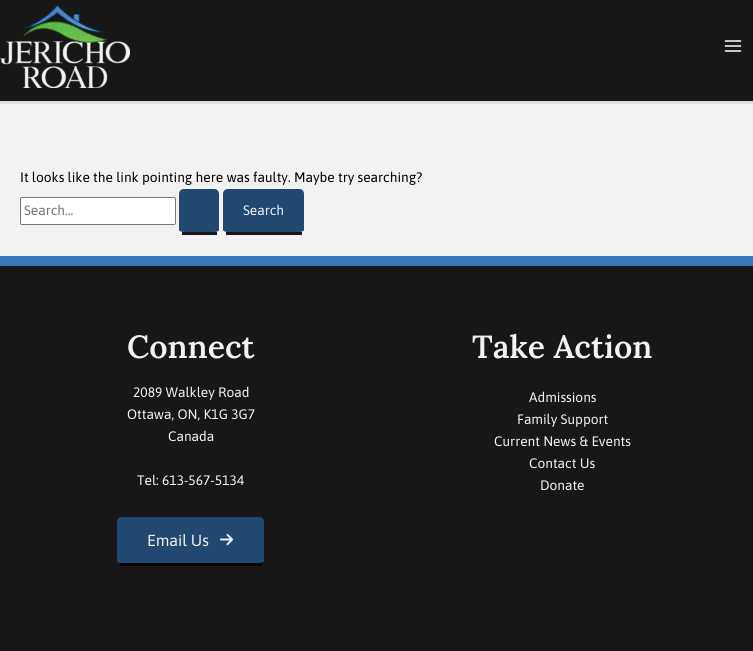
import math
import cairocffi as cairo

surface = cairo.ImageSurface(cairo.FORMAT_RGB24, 753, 651)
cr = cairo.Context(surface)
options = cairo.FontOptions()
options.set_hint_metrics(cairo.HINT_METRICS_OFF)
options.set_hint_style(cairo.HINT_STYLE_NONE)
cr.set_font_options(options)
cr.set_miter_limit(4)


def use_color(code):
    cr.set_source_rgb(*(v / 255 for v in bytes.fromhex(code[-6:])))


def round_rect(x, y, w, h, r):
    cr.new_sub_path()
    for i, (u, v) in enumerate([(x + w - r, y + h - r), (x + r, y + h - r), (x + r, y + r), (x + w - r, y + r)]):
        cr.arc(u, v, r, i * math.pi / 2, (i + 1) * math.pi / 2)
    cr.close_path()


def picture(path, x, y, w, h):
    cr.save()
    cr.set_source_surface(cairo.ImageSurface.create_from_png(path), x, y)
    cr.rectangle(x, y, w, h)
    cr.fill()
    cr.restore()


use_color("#f2f2f2")
cr.paint()
use_color("#171717")
cr.rectangle(0, 0, 753, 101)
cr.fill()
use_color("#dddddd")
cr.rectangle(0, 101, 753, 3)
cr.fill()
picture("img1.png", 0, 5, 130, 83)
picture("img2.png", 724, 40, 18, 12)
cr.select_font_face("Asap")
cr.set_font_size(13.7)
use_color("#000000")
cr.move_to(20, 182)
cr.show_text("It looks like the link pointing here was faulty. Maybe try searching?")
use_color("#ffffff")
round_rect(20.5, 197.5, 155, 27, 1.5)
cr.fill_preserve()
use_color("#767676")
cr.set_line_width(1)
cr.stroke()
use_color("#757575")
cr.move_to(24, 215)
cr.show_text("Search...")
use_color("#214870")
cr.new_path()
cr.move_to(184, 189)
cr.line_to(214, 189)
cr.curve_to(217, 189, 219, 191, 219, 194)
cr.line_to(219, 230)
cr.curve_to(219, 231, 217, 232, 214, 232)
cr.line_to(184, 232)
cr.curve_to(181, 232, 179, 231, 179, 230)
cr.line_to(179, 194)
cr.curve_to(179, 191, 181, 189, 184, 189)
cr.close_path()
cr.fill()
use_color("#171717")
cr.rectangle(182, 232, 35, 3)
cr.fill()
use_color("#214870")
cr.new_path()
cr.move_to(228, 189)
cr.line_to(299, 189)
cr.curve_to(302, 189, 304, 191, 304, 194)
cr.line_to(304, 230)
cr.curve_to(304, 231, 302, 232, 299, 232)
cr.line_to(228, 232)
cr.curve_to(225, 232, 223, 231, 223, 230)
cr.line_to(223, 194)
cr.curve_to(223, 191, 225, 189, 228, 189)
cr.close_path()
cr.fill()
use_color("#171717")
cr.rectangle(226, 232, 76, 3)
cr.fill()
use_color("#f2f2f2")
cr.move_to(243, 215)
cr.show_text("Search")
use_color("#171717")
cr.rectangle(0, 266, 753, 385)
cr.fill()
use_color("#3778bc")
cr.rectangle(0, 256, 753, 10)
cr.fill()
cr.select_font_face("Lora SemiBold")
cr.set_font_size(32)
use_color("#f2f2f2")
cr.move_to(127, 358)
cr.show_text("Connect")
cr.select_font_face("Asap")
cr.set_font_size(13.7)
cr.move_to(133, 397)
cr.show_text("2089 Walkley Road")
cr.move_to(127, 419)
cr.show_text("Ottawa, ON, K1G 3G7")
cr.move_to(168, 441)
cr.show_text("Canada")
cr.move_to(137, 485)
cr.show_text("Tel: 613-567-5134")
use_color("#214870")
cr.new_path()
cr.move_to(122, 517)
cr.line_to(259, 517)
cr.curve_to(262, 517, 264, 519, 264, 522)
cr.line_to(264, 561)
cr.curve_to(264, 562, 262, 563, 259, 563)
cr.line_to(122, 563)
cr.curve_to(119, 563, 117, 562, 117, 561)
cr.line_to(117, 522)
cr.curve_to(117, 519, 119, 517, 122, 517)
cr.close_path()
cr.fill()
use_color("#000000")
cr.rectangle(120, 563, 142, 3)
cr.fill()
cr.set_font_size(16)
use_color("#f2f2f2")
cr.move_to(147, 546)
cr.show_text("Email Us")
picture("img3.png", 220, 533, 13, 13)
cr.select_font_face("Lora SemiBold")
cr.set_font_size(32)
cr.move_to(472, 358)
cr.show_text("Take Action")
cr.select_font_face("Asap")
cr.set_font_size(13.7)
cr.move_to(529, 402)
cr.show_text("Admissions")
cr.move_to(517, 424)
cr.show_text("Family Support")
cr.move_to(494, 446)
cr.show_text("Current News & Events")
cr.move_to(529, 468)
cr.show_text("Contact Us")
cr.move_to(540, 490)
cr.show_text("Donate")
surface.write_to_png("result.png")
